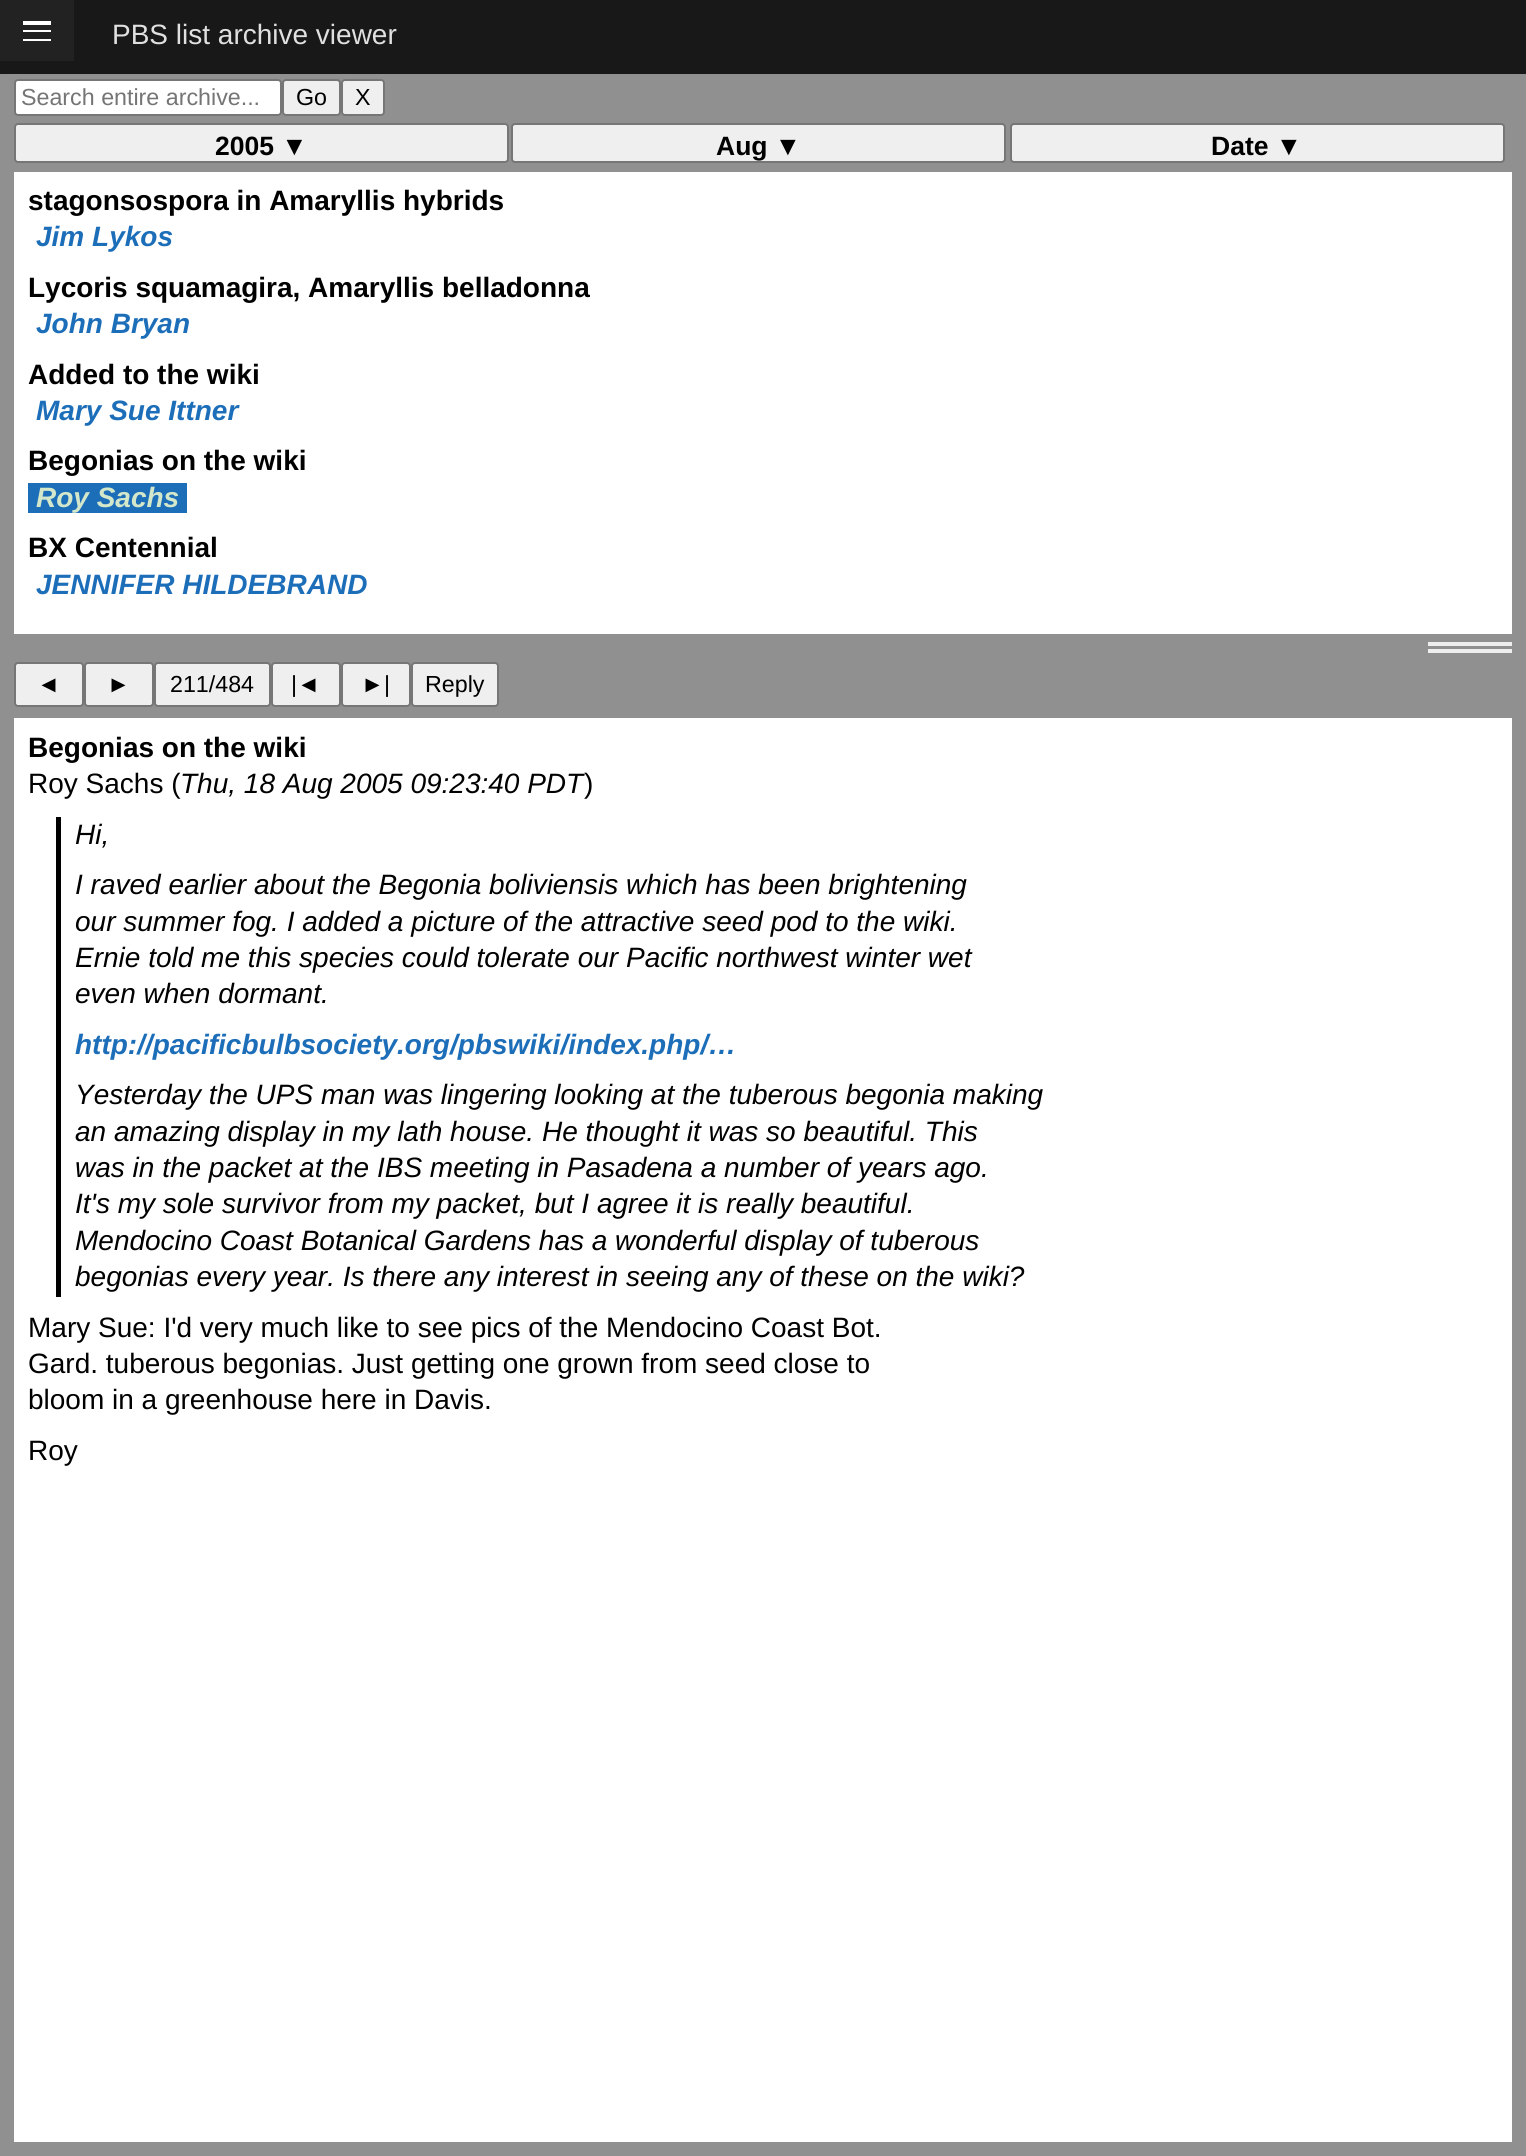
import math
import cairocffi as cairo

surface = cairo.ImageSurface(cairo.FORMAT_RGB24, 1526, 2156)
cr = cairo.Context(surface)
options = cairo.FontOptions()
options.set_hint_metrics(cairo.HINT_METRICS_OFF)
options.set_hint_style(cairo.HINT_STYLE_NONE)
cr.set_font_options(options)
cr.set_miter_limit(4)


def use_color(code):
    cr.set_source_rgb(*(v / 255 for v in bytes.fromhex(code[-6:])))


def round_rect(x, y, w, h, r):
    cr.new_sub_path()
    for i, (u, v) in enumerate([(x + w - r, y + h - r), (x + r, y + h - r), (x + r, y + r), (x + w - r, y + r)]):
        cr.arc(u, v, r, i * math.pi / 2, (i + 1) * math.pi / 2)
    cr.close_path()


use_color("#909090")
cr.paint()
use_color("#181818")
cr.rectangle(0, 0, 1526, 74)
cr.fill()
use_color("#222222")
cr.rectangle(0, 0, 74, 61)
cr.fill()
use_color("#ffffff")
cr.rectangle(23, 30, 28, 2)
cr.fill()
cr.rectangle(23, 21, 28, 4)
cr.fill()
cr.rectangle(23, 39, 28, 2)
cr.fill()
cr.select_font_face("Liberation Sans")
cr.set_font_size(28)
use_color("#e0e0e0")
cr.move_to(112, 44)
cr.show_text("PBS list archive viewer")
use_color("#ffffff")
round_rect(15, 80, 266, 35, 3)
cr.fill_preserve()
use_color("#767676")
cr.stroke()
cr.set_font_size(23.25)
use_color("#757575")
cr.move_to(21, 105)
cr.show_text("Search entire archive...")
use_color("#efefef")
round_rect(283, 80, 57, 35, 3)
cr.fill_preserve()
use_color("#767676")
cr.stroke()
use_color("#000000")
cr.move_to(296, 105)
cr.show_text("Go")
use_color("#efefef")
round_rect(342, 80, 42, 35, 3)
cr.fill_preserve()
use_color("#767676")
cr.stroke()
use_color("#000000")
cr.move_to(355, 105)
cr.show_text("X")
use_color("#efefef")
round_rect(15, 124, 493, 38, 3)
cr.fill_preserve()
use_color("#767676")
cr.stroke()
cr.select_font_face("Liberation Sans", cairo.FONT_SLANT_NORMAL, cairo.FONT_WEIGHT_BOLD)
cr.set_font_size(26.5)
use_color("#000000")
cr.move_to(215, 155)
cr.show_text("2005 ▼")
use_color("#efefef")
round_rect(512, 124, 493, 38, 3)
cr.fill_preserve()
use_color("#767676")
cr.stroke()
use_color("#000000")
cr.move_to(716, 155)
cr.show_text("Aug ▼")
use_color("#efefef")
round_rect(1011, 124, 493, 38, 3)
cr.fill_preserve()
use_color("#767676")
cr.stroke()
use_color("#000000")
cr.move_to(1211, 155)
cr.show_text("Date ▼")
use_color("#ffffff")
cr.rectangle(14, 172, 1498, 462)
cr.fill()
cr.set_font_size(28)
use_color("#000000")
cr.move_to(28, 210)
cr.show_text("stagonsospora in Amaryllis hybrids")
cr.select_font_face("Liberation Sans", cairo.FONT_SLANT_ITALIC, cairo.FONT_WEIGHT_BOLD)
use_color("#1d6eb9")
cr.move_to(36, 246)
cr.show_text("Jim Lykos")
cr.select_font_face("Liberation Sans", cairo.FONT_SLANT_NORMAL, cairo.FONT_WEIGHT_BOLD)
use_color("#000000")
cr.move_to(28, 297)
cr.show_text("Lycoris squamagira, Amaryllis belladonna")
cr.select_font_face("Liberation Sans", cairo.FONT_SLANT_ITALIC, cairo.FONT_WEIGHT_BOLD)
use_color("#1d6eb9")
cr.move_to(36, 333)
cr.show_text("John Bryan")
cr.select_font_face("Liberation Sans", cairo.FONT_SLANT_NORMAL, cairo.FONT_WEIGHT_BOLD)
use_color("#000000")
cr.move_to(28, 384)
cr.show_text("Added to the wiki")
cr.select_font_face("Liberation Sans", cairo.FONT_SLANT_ITALIC, cairo.FONT_WEIGHT_BOLD)
use_color("#1d6eb9")
cr.move_to(36, 420)
cr.show_text("Mary Sue Ittner")
cr.select_font_face("Liberation Sans", cairo.FONT_SLANT_NORMAL, cairo.FONT_WEIGHT_BOLD)
use_color("#000000")
cr.move_to(28, 470)
cr.show_text("Begonias on the wiki")
use_color("#1d6eb9")
cr.rectangle(28, 483, 159, 30)
cr.fill()
cr.select_font_face("Liberation Sans", cairo.FONT_SLANT_ITALIC, cairo.FONT_WEIGHT_BOLD)
use_color("#d3e7ca")
cr.move_to(36, 507)
cr.show_text("Roy Sachs")
cr.select_font_face("Liberation Sans", cairo.FONT_SLANT_NORMAL, cairo.FONT_WEIGHT_BOLD)
use_color("#000000")
cr.move_to(28, 557)
cr.show_text("BX Centennial")
cr.select_font_face("Liberation Sans", cairo.FONT_SLANT_ITALIC, cairo.FONT_WEIGHT_BOLD)
use_color("#1d6eb9")
cr.move_to(36, 594)
cr.show_text("JENNIFER HILDEBRAND")
use_color("#eeeeee")
cr.rectangle(1428, 642, 84, 4)
cr.fill()
cr.rectangle(1428, 649, 84, 4)
cr.fill()
use_color("#efefef")
round_rect(15, 663, 68, 43, 3)
cr.fill_preserve()
use_color("#767676")
cr.stroke()
cr.select_font_face("Liberation Sans")
cr.set_font_size(23.25)
use_color("#000000")
cr.move_to(37, 692)
cr.show_text("◄")
use_color("#efefef")
round_rect(85, 663, 68, 43, 3)
cr.fill_preserve()
use_color("#767676")
cr.stroke()
use_color("#000000")
cr.move_to(107, 692)
cr.show_text("►")
use_color("#efefef")
round_rect(155, 663, 115, 43, 3)
cr.fill_preserve()
use_color("#767676")
cr.stroke()
use_color("#000000")
cr.move_to(170, 692)
cr.show_text("211/484")
use_color("#efefef")
round_rect(272, 663, 68, 43, 3)
cr.fill_preserve()
use_color("#767676")
cr.stroke()
use_color("#000000")
cr.move_to(291, 692)
cr.show_text("|◄")
use_color("#efefef")
round_rect(342, 663, 68, 43, 3)
cr.fill_preserve()
use_color("#767676")
cr.stroke()
use_color("#000000")
cr.move_to(361, 692)
cr.show_text("►|")
use_color("#efefef")
round_rect(412, 663, 86, 43, 3)
cr.fill_preserve()
use_color("#767676")
cr.stroke()
use_color("#000000")
cr.move_to(425, 692)
cr.show_text("Reply")
use_color("#ffffff")
cr.rectangle(14, 718, 1498, 1424)
cr.fill()
cr.select_font_face("Liberation Sans", cairo.FONT_SLANT_NORMAL, cairo.FONT_WEIGHT_BOLD)
cr.set_font_size(28)
use_color("#000000")
cr.move_to(28, 757)
cr.show_text("Begonias on the wiki")
cr.select_font_face("Liberation Sans")
cr.move_to(28, 793)
cr.show_text("Roy Sachs (")
cr.select_font_face("Liberation Sans", cairo.FONT_SLANT_ITALIC)
cr.move_to(180, 793)
cr.show_text("Thu, 18 Aug 2005 09:23:40 PDT")
cr.select_font_face("Liberation Sans")
cr.move_to(584, 793)
cr.show_text(")")
cr.rectangle(56, 817, 5, 480)
cr.fill()
cr.select_font_face("Liberation Sans", cairo.FONT_SLANT_ITALIC)
cr.move_to(75, 844)
cr.show_text("Hi,")
cr.move_to(75, 894)
cr.show_text("I raved earlier about the Begonia boliviensis which has been brightening")
cr.move_to(75, 931)
cr.show_text("our summer fog. I added a picture of the attractive seed pod to the wiki.")
cr.move_to(75, 967)
cr.show_text("Ernie told me this species could tolerate our Pacific northwest winter wet")
cr.move_to(75, 1003)
cr.show_text("even when dormant.")
cr.select_font_face("Liberation Sans", cairo.FONT_SLANT_ITALIC, cairo.FONT_WEIGHT_BOLD)
use_color("#1d6eb9")
cr.move_to(75, 1054)
cr.show_text("http://pacificbulbsociety.org/pbswiki/index.php/…")
cr.select_font_face("Liberation Sans", cairo.FONT_SLANT_ITALIC)
use_color("#000000")
cr.move_to(75, 1104)
cr.show_text("Yesterday the UPS man was lingering looking at the tuberous begonia making")
cr.move_to(75, 1141)
cr.show_text("an amazing display in my lath house. He thought it was so beautiful. This")
cr.move_to(75, 1177)
cr.show_text("was in the packet at the IBS meeting in Pasadena a number of years ago.")
cr.move_to(75, 1213)
cr.show_text("It's my sole survivor from my packet, but I agree it is really beautiful.")
cr.move_to(75, 1250)
cr.show_text("Mendocino Coast Botanical Gardens has a wonderful display of tuberous")
cr.move_to(75, 1286)
cr.show_text("begonias every year. Is there any interest in seeing any of these on the wiki?")
cr.select_font_face("Liberation Sans")
cr.move_to(28, 1337)
cr.show_text("Mary Sue: I'd very much like to see pics of the Mendocino Coast Bot.")
cr.move_to(28, 1373)
cr.show_text("Gard. tuberous begonias. Just getting one grown from seed close to")
cr.move_to(28, 1409)
cr.show_text("bloom in a greenhouse here in Davis.")
cr.move_to(28, 1460)
cr.show_text("Roy")
surface.write_to_png("result.png")
